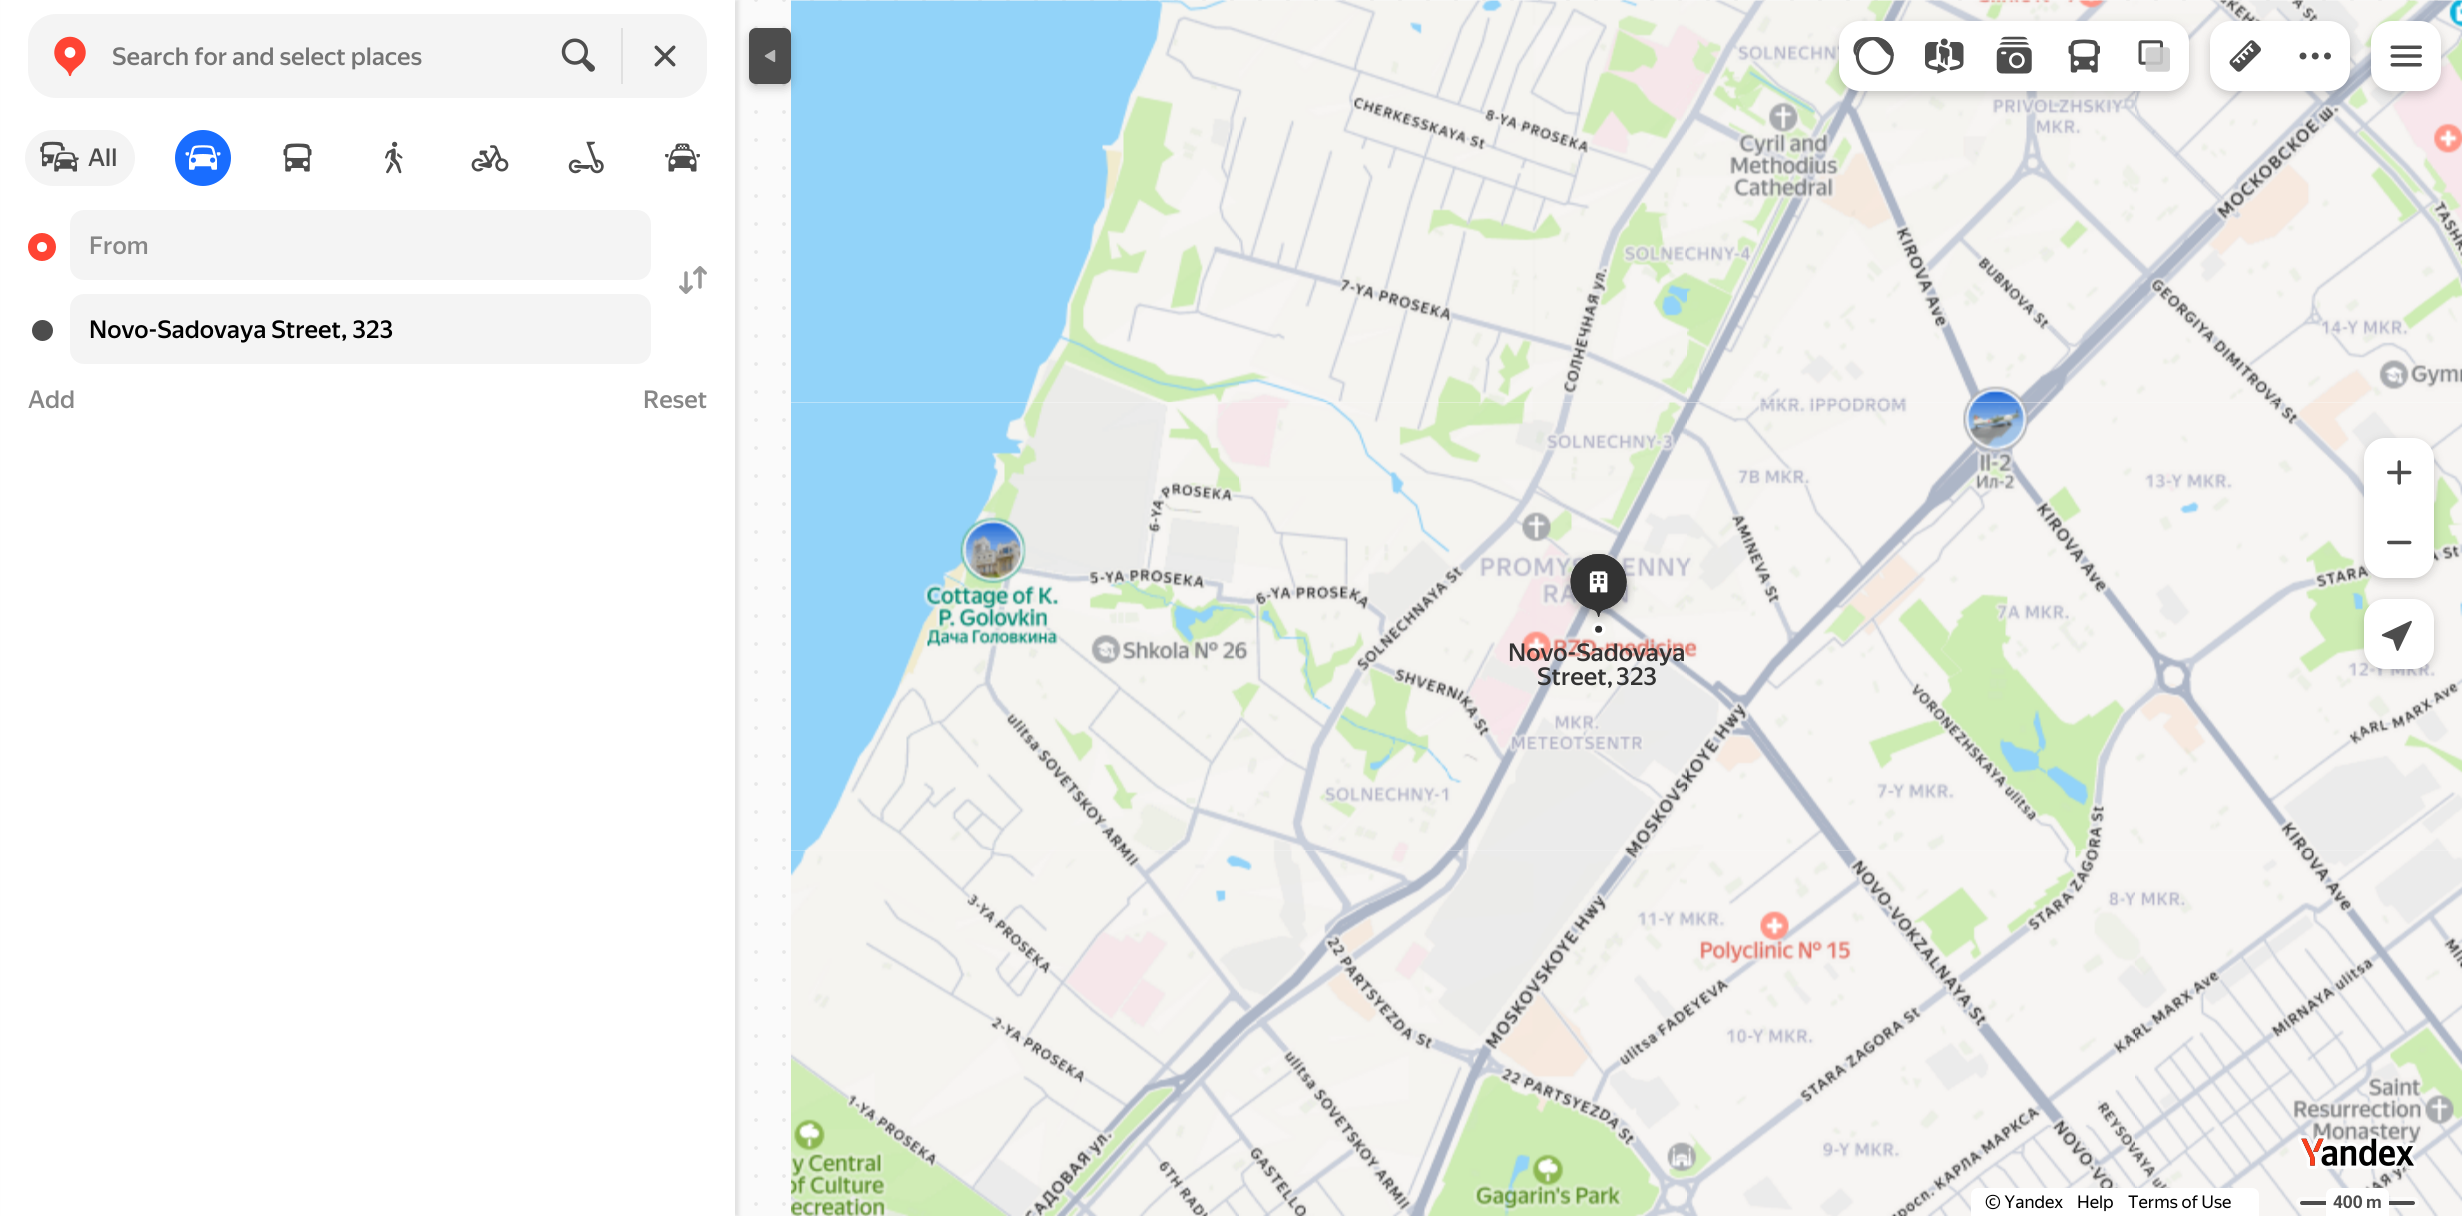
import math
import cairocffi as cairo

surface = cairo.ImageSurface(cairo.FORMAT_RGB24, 2462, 1216)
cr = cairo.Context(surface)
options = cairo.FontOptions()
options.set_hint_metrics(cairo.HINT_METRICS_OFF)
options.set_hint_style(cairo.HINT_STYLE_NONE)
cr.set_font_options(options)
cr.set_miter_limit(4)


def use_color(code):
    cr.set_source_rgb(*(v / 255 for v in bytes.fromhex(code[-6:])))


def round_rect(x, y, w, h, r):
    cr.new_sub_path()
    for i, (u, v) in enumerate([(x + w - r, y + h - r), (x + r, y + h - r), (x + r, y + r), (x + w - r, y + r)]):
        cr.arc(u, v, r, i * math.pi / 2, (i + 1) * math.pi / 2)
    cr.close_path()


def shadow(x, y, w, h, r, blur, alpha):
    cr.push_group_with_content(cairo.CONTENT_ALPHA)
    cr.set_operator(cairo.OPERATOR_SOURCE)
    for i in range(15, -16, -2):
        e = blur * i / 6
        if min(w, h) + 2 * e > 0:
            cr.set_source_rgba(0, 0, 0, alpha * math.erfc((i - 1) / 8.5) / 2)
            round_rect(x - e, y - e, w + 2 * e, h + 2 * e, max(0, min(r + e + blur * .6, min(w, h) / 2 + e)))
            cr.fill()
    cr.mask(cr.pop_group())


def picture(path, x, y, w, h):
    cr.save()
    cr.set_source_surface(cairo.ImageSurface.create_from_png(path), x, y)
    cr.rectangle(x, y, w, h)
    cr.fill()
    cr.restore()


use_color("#ffffff")
cr.paint()
picture("img1.png", 735, 0, 1727, 1216)
use_color("#000000")
shadow(4, 0, 735, 1216, 0, 2, 0.1)
picture("img26.png", 791, 0, 448, 403)
shadow(749, 32, 42, 56, 7, 5, 0.2)
use_color("#ffffff")
cr.rectangle(1, 0, 734, 1216)
cr.fill()
use_color("#f4f4f4")
round_rect(28, 14, 679, 84, 28)
cr.fill()
picture("img2.png", 54, 36, 32, 41)
cr.select_font_face("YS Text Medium")
cr.set_font_size(24.5)
use_color("#757575")
cr.move_to(112, 65)
cr.show_text("Search for and select places")
picture("img3.png", 561, 38, 34, 34)
use_color("#e0e0e0")
cr.rectangle(621, 28, 2, 56)
cr.fill()
picture("img4.png", 654, 45, 22, 22)
picture("img28.png", 1687, 0, 448, 403)
picture("img33.png", 2135, 402, 327, 449)
picture("img29.png", 2135, 0, 327, 403)
use_color("#000000")
shadow(1839, 25, 350, 70, 21, 5, 0.2)
use_color("#ffffff")
cr.new_path()
cr.move_to(1860, 21)
cr.line_to(1909, 21)
cr.line_to(1909, 91)
cr.line_to(1860, 91)
cr.curve_to(1848.5, 91, 1839, 81.5, 1839, 70)
cr.line_to(1839, 42)
cr.curve_to(1839, 30.5, 1848.5, 21, 1860, 21)
cr.close_path()
cr.fill()
picture("img5.png", 1853, 37, 41, 38)
cr.rectangle(1909, 21, 210, 70)
cr.fill()
picture("img6.png", 1925, 38, 39, 36)
cr.new_path()
cr.move_to(2119, 21)
cr.line_to(2168, 21)
cr.curve_to(2179.5, 21, 2189, 30.5, 2189, 42)
cr.line_to(2189, 70)
cr.curve_to(2189, 81.5, 2179.5, 91, 2168, 91)
cr.line_to(2119, 91)
cr.close_path()
cr.fill()
picture("img7.png", 2138, 40, 32, 32)
picture("img8.png", 1996, 36, 36, 38)
picture("img9.png", 2068, 39, 32, 34)
use_color("#000000")
shadow(2210, 25, 140, 70, 21, 5, 0.2)
use_color("#ffffff")
cr.new_path()
cr.move_to(2231, 21)
cr.line_to(2280, 21)
cr.line_to(2280, 91)
cr.line_to(2231, 91)
cr.curve_to(2219.5, 91, 2210, 81.5, 2210, 70)
cr.line_to(2210, 42)
cr.curve_to(2210, 30.5, 2219.5, 21, 2231, 21)
cr.close_path()
cr.fill()
picture("img10.png", 2229, 40, 32, 32)
cr.new_path()
cr.move_to(2280, 21)
cr.line_to(2329, 21)
cr.curve_to(2340.5, 21, 2350, 30.5, 2350, 42)
cr.line_to(2350, 70)
cr.curve_to(2350, 81.5, 2340.5, 91, 2329, 91)
cr.line_to(2280, 91)
cr.close_path()
cr.fill()
picture("img11.png", 2299, 52, 32, 8)
use_color("#000000")
shadow(2371, 25, 70, 70, 21, 5, 0.2)
use_color("#ffffff")
round_rect(2371, 21, 70, 70, 21)
cr.fill()
picture("img12.png", 2390, 45, 32, 22)
use_color("#000000")
shadow(2364, 441, 70, 140, 21, 5, 0.2)
use_color("#ffffff")
cr.new_path()
cr.move_to(2385, 438)
cr.line_to(2413, 438)
cr.curve_to(2424.5, 438, 2434, 447.5, 2434, 459)
cr.line_to(2434, 508)
cr.line_to(2364, 508)
cr.line_to(2364, 459)
cr.curve_to(2364, 447.5, 2373.5, 438, 2385, 438)
cr.close_path()
cr.fill()
picture("img13.png", 2387, 460, 25, 25)
cr.new_path()
cr.move_to(2364, 508)
cr.line_to(2434, 508)
cr.line_to(2434, 557)
cr.curve_to(2434, 568.5, 2424.5, 578, 2413, 578)
cr.line_to(2385, 578)
cr.curve_to(2373.5, 578, 2364, 568.5, 2364, 557)
cr.close_path()
cr.fill()
picture("img14.png", 2387, 540, 25, 5)
use_color("#000000")
shadow(2364, 602, 70, 70, 21, 5, 0.2)
use_color("#ffffff")
round_rect(2364, 599, 70, 70, 21)
cr.fill()
picture("img15.png", 2381, 620, 31, 31)
use_color("#4d4d4d")
round_rect(749, 28, 42, 56, 7)
cr.fill()
picture("img16.png", 764, 49, 12, 14)
use_color("#f4f4f4")
round_rect(25, 130, 110, 56, 28)
cr.fill()
picture("img17.png", 40, 141, 39, 31)
use_color("#4d4d4d")
cr.move_to(88, 166)
cr.show_text("All")
use_color("#196dff")
cr.new_path()
cr.arc(203, 158, 28, 0, 2 * math.pi)
cr.fill()
picture("img18.png", 185, 145, 36, 25)
picture("img19.png", 283, 143, 29, 29)
picture("img20.png", 385, 141, 18, 33)
picture("img21.png", 471, 145, 38, 27)
picture("img22.png", 568, 141, 36, 33)
picture("img23.png", 665, 143, 35, 29)
use_color("#ff4433")
cr.arc(42, 247, 12, 0, 2 * math.pi)
cr.fill_preserve()
cr.set_line_width(4)
cr.stroke()
use_color("#ffffff")
cr.arc(42, 247, 5, 0, 2 * math.pi)
cr.fill()
use_color("#f4f4f4")
round_rect(70, 210, 581, 70, 14)
cr.fill()
use_color("#878787")
cr.move_to(89, 254)
cr.show_text("From")
use_color("#4d4d4d")
cr.new_path()
cr.arc(42.5, 330.5, 10.5, 0, 2 * math.pi)
cr.fill()
use_color("#f4f4f4")
round_rect(70, 294, 581, 70, 14)
cr.fill()
use_color("#000000")
cr.move_to(89, 338)
cr.show_text("Novo-Sadovaya Street, 323")
picture("img24.png", 679, 266, 28, 28)
use_color("#878787")
cr.move_to(28, 408)
cr.show_text("Add")
cr.move_to(643, 408)
cr.show_text("Reset")
picture("img37.png", 2135, 850, 327, 366)
picture("img25.png", 2298, 1135, 119, 35)
picture("img32.png", 1687, 402, 448, 449)
picture("img36.png", 1687, 850, 448, 366)
use_color("#ffffff")
cr.new_path()
cr.move_to(1978, 1188)
cr.line_to(2252, 1188)
cr.curve_to(2256, 1188, 2259, 1191, 2259, 1195)
cr.line_to(2259, 1216)
cr.line_to(1971, 1216)
cr.line_to(1971, 1195)
cr.curve_to(1971, 1191, 1974, 1188, 1978, 1188)
cr.close_path()
cr.fill()
cr.select_font_face("YS Text")
cr.set_font_size(17.5)
use_color("#000000")
cr.move_to(1985, 1208)
cr.show_text("© Yandex")
cr.move_to(2077, 1208)
cr.show_text("Help")
cr.move_to(2128, 1208)
cr.show_text("Terms of Use")
cr.set_source_rgba(1, 1, 1, 0.6)
round_rect(2296, 1197, 123, 11, 5.5)
cr.fill()
use_color("#4d4d4d")
round_rect(2300, 1201, 115, 4, 2)
cr.fill()
use_color("#ffffff")
cr.new_path()
cr.move_to(2333, 1188)
cr.line_to(2382, 1188)
cr.curve_to(2386, 1188, 2389, 1191, 2389, 1195)
cr.line_to(2389, 1216)
cr.line_to(2326, 1216)
cr.line_to(2326, 1195)
cr.curve_to(2326, 1191, 2329, 1188, 2333, 1188)
cr.close_path()
cr.fill()
cr.select_font_face("YS Text", cairo.FONT_SLANT_NORMAL, cairo.FONT_WEIGHT_BOLD)
use_color("#4d4d4d")
cr.move_to(2333, 1208)
cr.show_text("400 m")
picture("img27.png", 1239, 0, 448, 403)
picture("img30.png", 791, 402, 448, 449)
picture("img31.png", 1239, 402, 448, 449)
picture("img34.png", 791, 850, 448, 366)
picture("img35.png", 1239, 850, 448, 366)
picture("img38.png", 1562, 550, 73, 86)
picture("img39.png", 1589, 571, 19, 22)
cr.select_font_face("YS Text Medium")
cr.set_font_size(24.5)
use_color("#333333")
cr.move_to(1508, 661)
cr.show_text("Novo-Sadovaya")
cr.move_to(1537, 685)
cr.show_text("Street,")
cr.move_to(1616, 685)
cr.show_text("323")
surface.write_to_png("result.png")
